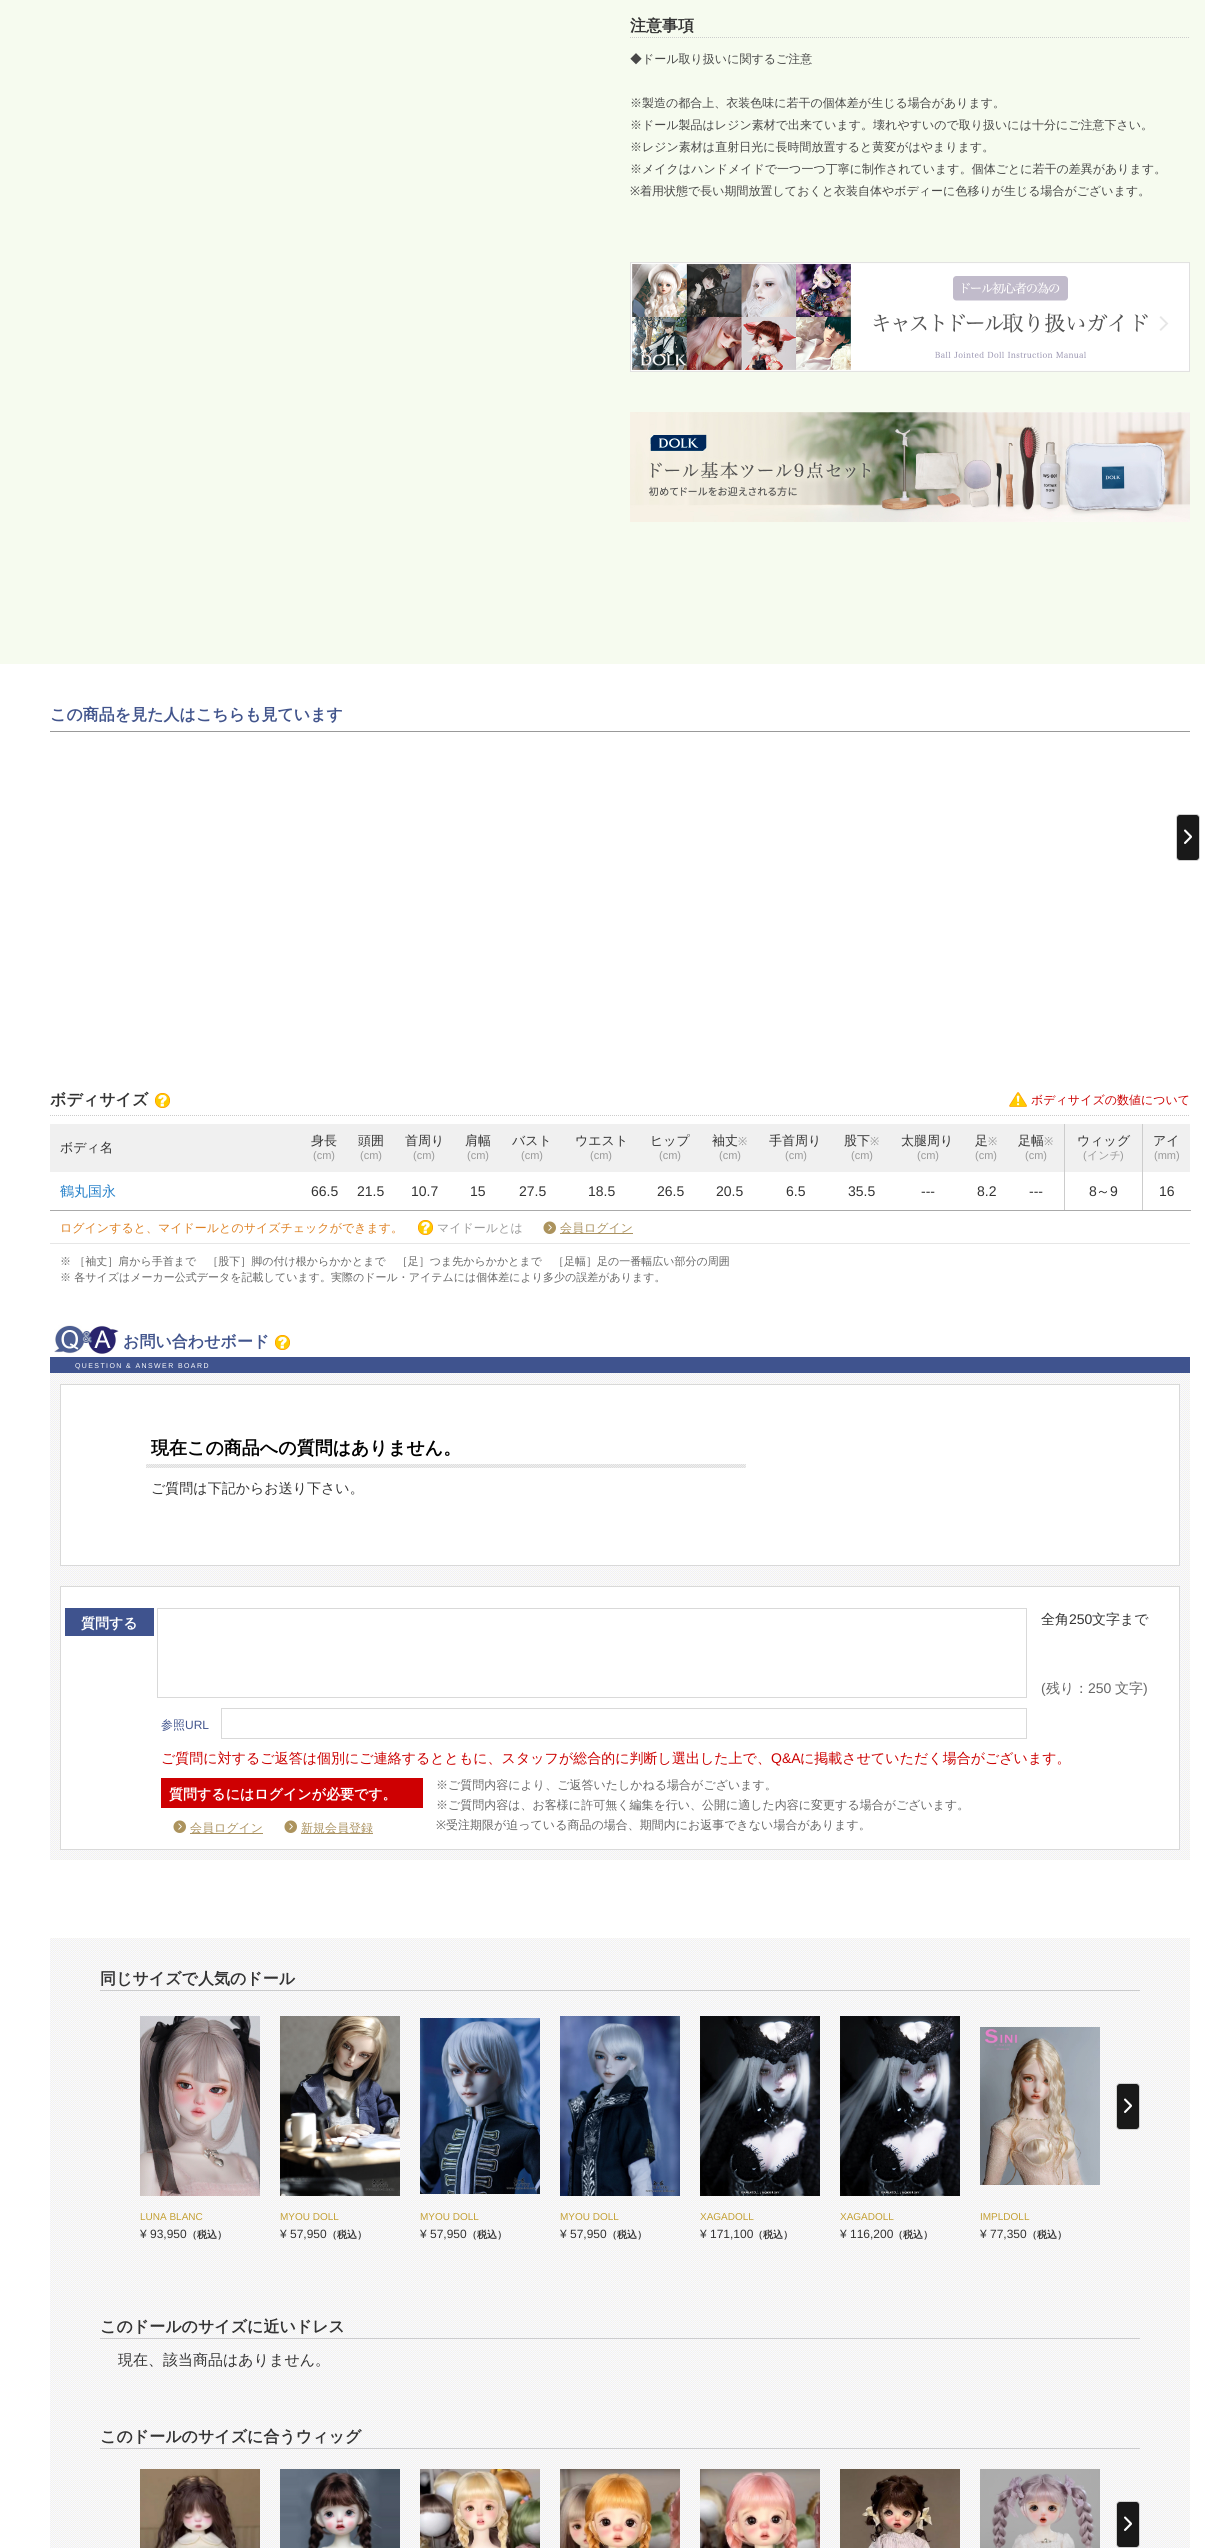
import math
import cairocffi as cairo

surface = cairo.ImageSurface(cairo.FORMAT_RGB24, 1205, 2548)
cr = cairo.Context(surface)
options = cairo.FontOptions()
options.set_hint_metrics(cairo.HINT_METRICS_OFF)
options.set_hint_style(cairo.HINT_STYLE_NONE)
cr.set_font_options(options)
cr.set_miter_limit(4)


def use_color(code):
    cr.set_source_rgb(*(v / 255 for v in bytes.fromhex(code[-6:])))


def spaced_text(x, y, s, letter, word):
    cr.move_to(x, y)
    for ch in s:
        cr.show_text(ch)
        cr.rel_move_to(letter + word * (ch == ' '), 0)


def picture(path, x, y, w, h):
    cr.save()
    cr.set_source_surface(cairo.ImageSurface.create_from_png(path), x, y)
    cr.rectangle(x, y, w, h)
    cr.fill()
    cr.restore()


use_color("#ffffff")
cr.paint()
use_color("#f6fbef")
cr.rectangle(0, 0, 1205, 664)
cr.fill()
cr.new_path()
cr.move_to(630, 37.5)
cr.line_to(1190, 37.5)
use_color("#cccccc")
cr.set_line_width(1)
cr.set_dash([1, 1])
cr.stroke()
cr.select_font_face("WenQuanYi Zen Hei", cairo.FONT_SLANT_NORMAL, cairo.FONT_WEIGHT_BOLD)
cr.set_font_size(16)
use_color("#333333")
cr.move_to(630, 31)
cr.show_text("注意事項")
cr.select_font_face("WenQuanYi Zen Hei Medium")
cr.set_font_size(12)
use_color("#474747")
cr.move_to(630, 63)
cr.show_text("◆ドール取り扱いに関するご注意")
cr.move_to(630, 107)
cr.show_text("※製造の都合上、衣装色味に若干の個体差が生じる場合があります。")
cr.move_to(630, 129)
cr.show_text("※ドール製品はレジン素材で出来ています。壊れやすいので取り扱いには十分にご注意下さい。")
cr.move_to(630, 151)
cr.show_text("※レジン素材は直射日光に長時間放置すると黄変がはやまります。")
cr.move_to(630, 173)
cr.show_text("※メイクはハンドメイドで一つ一つ丁寧に制作されています。個体ごとに若干の差異があります。")
cr.select_font_face("Noto Sans")
cr.move_to(630, 195)
cr.show_text("※")
cr.select_font_face("WenQuanYi Zen Hei Medium")
cr.move_to(640, 195)
cr.show_text("着用状態で長い期間放置しておくと衣装自体やボディーに色移りが生じる場合がございます。")
picture("img1.png", 630, 262, 560, 110)
picture("img2.png", 630, 412, 560, 110)
use_color("#999999")
cr.rectangle(50, 731, 1140, 1)
cr.fill()
cr.select_font_face("WenQuanYi Zen Hei", cairo.FONT_SLANT_NORMAL, cairo.FONT_WEIGHT_BOLD)
cr.set_font_size(16)
use_color("#41548c")
cr.move_to(50, 720)
cr.show_text("この商品を見た人はこちらも見ています")
picture("img3.png", 1176, 814, 24, 47)
cr.new_path()
cr.move_to(50, 1115.5)
cr.line_to(1190, 1115.5)
use_color("#cccccc")
cr.stroke()
use_color("#333333")
cr.move_to(50, 1105)
cr.show_text("ボディサイズ")
picture("img4.png", 155, 1093, 15, 15)
picture("img5.png", 1009, 1092, 18, 15)
cr.select_font_face("WenQuanYi Zen Hei Medium")
cr.set_font_size(12)
use_color("#cc0000")
cr.move_to(1031, 1104)
cr.show_text("ボディサイズの数値について")
use_color("#f0f0f0")
cr.rectangle(50, 1124, 1014, 48)
cr.fill()
cr.set_font_size(13)
use_color("#333333")
cr.move_to(60, 1152)
cr.show_text("ボディ名")
cr.move_to(311, 1145)
cr.show_text("身長")
cr.select_font_face("Liberation Sans")
cr.set_font_size(11)
use_color("#999999")
cr.move_to(313, 1159)
cr.show_text("(cm)")
cr.select_font_face("WenQuanYi Zen Hei Medium")
cr.set_font_size(13)
use_color("#333333")
cr.move_to(358, 1145)
cr.show_text("頭囲")
cr.select_font_face("Liberation Sans")
cr.set_font_size(11)
use_color("#999999")
cr.move_to(360, 1159)
cr.show_text("(cm)")
cr.select_font_face("WenQuanYi Zen Hei Medium")
cr.set_font_size(13)
use_color("#333333")
cr.move_to(405, 1145)
cr.show_text("首周り")
cr.select_font_face("Liberation Sans")
cr.set_font_size(11)
use_color("#999999")
cr.move_to(413, 1159)
cr.show_text("(cm)")
cr.select_font_face("WenQuanYi Zen Hei Medium")
cr.set_font_size(13)
use_color("#333333")
cr.move_to(465, 1145)
cr.show_text("肩幅")
cr.select_font_face("Liberation Sans")
cr.set_font_size(11)
use_color("#999999")
cr.move_to(467, 1159)
cr.show_text("(cm)")
cr.select_font_face("WenQuanYi Zen Hei Medium")
cr.set_font_size(13)
use_color("#333333")
cr.move_to(512, 1145)
cr.show_text("バスト")
cr.select_font_face("Liberation Sans")
cr.set_font_size(11)
use_color("#999999")
cr.move_to(521, 1159)
cr.show_text("(cm)")
cr.select_font_face("WenQuanYi Zen Hei Medium")
cr.set_font_size(13)
use_color("#333333")
cr.move_to(575, 1145)
cr.show_text("ウエスト")
cr.select_font_face("Liberation Sans")
cr.set_font_size(11)
use_color("#999999")
cr.move_to(590, 1159)
cr.show_text("(cm)")
cr.select_font_face("WenQuanYi Zen Hei Medium")
cr.set_font_size(13)
use_color("#333333")
cr.move_to(650, 1145)
cr.show_text("ヒップ")
cr.select_font_face("Liberation Sans")
cr.set_font_size(11)
use_color("#999999")
cr.move_to(659, 1159)
cr.show_text("(cm)")
cr.select_font_face("WenQuanYi Zen Hei Medium")
cr.set_font_size(13)
use_color("#333333")
cr.move_to(712, 1145)
cr.show_text("袖丈")
cr.select_font_face("Noto Sans")
cr.set_font_size(11)
use_color("#999999")
cr.move_to(738, 1145)
cr.show_text("※")
cr.select_font_face("Liberation Sans")
cr.move_to(719, 1159)
cr.show_text("(cm)")
cr.select_font_face("WenQuanYi Zen Hei Medium")
cr.set_font_size(13)
use_color("#333333")
cr.move_to(769, 1145)
cr.show_text("手首周り")
cr.select_font_face("Liberation Sans")
cr.set_font_size(11)
use_color("#999999")
cr.move_to(785, 1159)
cr.show_text("(cm)")
cr.select_font_face("WenQuanYi Zen Hei Medium")
cr.set_font_size(13)
use_color("#333333")
cr.move_to(844, 1145)
cr.show_text("股下")
cr.select_font_face("Noto Sans")
cr.set_font_size(11)
use_color("#999999")
cr.move_to(870, 1145)
cr.show_text("※")
cr.select_font_face("Liberation Sans")
cr.move_to(851, 1159)
cr.show_text("(cm)")
cr.select_font_face("WenQuanYi Zen Hei Medium")
cr.set_font_size(13)
use_color("#333333")
cr.move_to(901, 1145)
cr.show_text("太腿周り")
cr.select_font_face("Liberation Sans")
cr.set_font_size(11)
use_color("#999999")
cr.move_to(917, 1159)
cr.show_text("(cm)")
cr.select_font_face("WenQuanYi Zen Hei Medium")
cr.set_font_size(13)
use_color("#333333")
cr.move_to(975, 1145)
cr.show_text("足")
cr.select_font_face("Noto Sans")
cr.set_font_size(11)
use_color("#999999")
cr.move_to(988, 1145)
cr.show_text("※")
cr.select_font_face("Liberation Sans")
cr.move_to(975, 1159)
cr.show_text("(cm)")
cr.select_font_face("WenQuanYi Zen Hei Medium")
cr.set_font_size(13)
use_color("#333333")
cr.move_to(1018, 1145)
cr.show_text("足幅")
cr.select_font_face("Noto Sans")
cr.set_font_size(11)
use_color("#999999")
cr.move_to(1044, 1145)
cr.show_text("※")
cr.select_font_face("Liberation Sans")
cr.move_to(1025, 1159)
cr.show_text("(cm)")
use_color("#f0f0f0")
cr.rectangle(1065, 1124, 77, 48)
cr.fill()
cr.select_font_face("WenQuanYi Zen Hei Medium")
cr.set_font_size(13)
use_color("#333333")
cr.move_to(1077, 1145)
cr.show_text("ウィッグ")
cr.select_font_face("Liberation Sans")
cr.set_font_size(11)
use_color("#999999")
cr.move_to(1083, 1159)
cr.show_text("(")
cr.select_font_face("WenQuanYi Zen Hei Medium")
cr.move_to(1087, 1159)
cr.show_text("インチ")
cr.select_font_face("Liberation Sans")
cr.move_to(1120, 1159)
cr.show_text(")")
use_color("#f0f0f0")
cr.rectangle(1143, 1124, 47, 48)
cr.fill()
cr.select_font_face("WenQuanYi Zen Hei Medium")
cr.set_font_size(13)
use_color("#333333")
cr.move_to(1153, 1145)
cr.show_text("アイ")
cr.select_font_face("Liberation Sans")
cr.set_font_size(11)
use_color("#999999")
cr.move_to(1154, 1159)
cr.show_text("(mm)")
cr.select_font_face("WenQuanYi Zen Hei Medium")
cr.set_font_size(14)
use_color("#2580c9")
cr.move_to(60, 1196)
cr.show_text("鶴丸国永")
cr.select_font_face("Liberation Sans")
use_color("#333333")
cr.move_to(311, 1196)
cr.show_text("66.5")
cr.move_to(357, 1196)
cr.show_text("21.5")
cr.move_to(411, 1196)
cr.show_text("10.7")
cr.move_to(470, 1196)
cr.show_text("15")
cr.move_to(519, 1196)
cr.show_text("27.5")
cr.move_to(588, 1196)
cr.show_text("18.5")
cr.move_to(657, 1196)
cr.show_text("26.5")
cr.move_to(716, 1196)
cr.show_text("20.5")
cr.move_to(786, 1196)
cr.show_text("6.5")
cr.move_to(848, 1196)
cr.show_text("35.5")
cr.move_to(921, 1196)
cr.show_text("---")
cr.move_to(977, 1196)
cr.show_text("8.2")
use_color("#aaaaaa")
cr.rectangle(1142, 1210, 49, 1)
cr.fill()
use_color("#cccccc")
cr.rectangle(1142, 1124, 1, 87)
cr.fill()
use_color("#aaaaaa")
cr.rectangle(1064, 1210, 79, 1)
cr.fill()
use_color("#cccccc")
cr.rectangle(1064, 1124, 1, 87)
cr.fill()
use_color("#aaaaaa")
cr.rectangle(50, 1210, 1015, 1)
cr.fill()
use_color("#333333")
cr.move_to(1029, 1196)
cr.show_text("---")
cr.move_to(1089, 1196)
cr.show_text("8")
cr.select_font_face("WenQuanYi Zen Hei Medium")
cr.move_to(1096, 1196)
cr.show_text("～")
cr.select_font_face("Liberation Sans")
cr.move_to(1110, 1196)
cr.show_text("9")
cr.move_to(1159, 1196)
cr.show_text("16")
use_color("#e6e6e6")
cr.rectangle(50, 1243, 1140, 1)
cr.fill()
cr.select_font_face("WenQuanYi Zen Hei Medium")
cr.set_font_size(12)
use_color("#de8123")
cr.move_to(60, 1232)
cr.show_text("ログインすると、マイドールとのサイズチェックができます。")
picture("img4.png", 418, 1220, 15, 15)
use_color("#999999")
cr.move_to(437, 1232)
cr.show_text("マイドールとは")
picture("img6.png", 543, 1221, 13, 13)
use_color("#ab9260")
cr.rectangle(560, 1233, 73, 1)
cr.fill()
cr.move_to(560, 1232)
cr.show_text("会員ログイン")
cr.set_font_size(11)
use_color("#666666")
cr.move_to(60, 1265)
cr.show_text("※ ［袖丈］肩から手首まで　［股下］脚の付け根からかかとまで　［足］つま先からかかとまで　［足幅］足の一番幅広い部分の周囲")
cr.move_to(60, 1281)
cr.show_text("※ 各サイズはメーカー公式データを記載しています。実際のドール・アイテムには個体差により多少の誤差があります。")
picture("img7.png", 50, 1373, 1140, 487)
picture("img8.png", 54, 1325, 65, 29)
cr.select_font_face("WenQuanYi Zen Hei", cairo.FONT_SLANT_NORMAL, cairo.FONT_WEIGHT_BOLD)
cr.set_font_size(16)
use_color("#41548c")
cr.move_to(123, 1347)
cr.show_text("お問い合わせボード")
picture("img4.png", 275, 1335, 15, 15)
use_color("#3f538e")
cr.rectangle(50, 1357, 1140, 16)
cr.fill()
cr.select_font_face("Liberation Sans")
cr.set_font_size(7)
use_color("#ffffff")
spaced_text(75, 1368, "QUESTION & ANSWER BOARD", 1.4, 0)
cr.rectangle(60.5, 1384.5, 1119, 181)
cr.fill_preserve()
use_color("#d9d9d9")
cr.set_dash([])
cr.stroke()
cr.select_font_face("WenQuanYi Zen Hei", cairo.FONT_SLANT_NORMAL, cairo.FONT_WEIGHT_BOLD)
cr.set_font_size(18)
use_color("#000000")
cr.move_to(151, 1454)
cr.show_text("現在この商品への質問はありません。")
picture("img9.png", 146, 1464, 600, 4)
cr.select_font_face("WenQuanYi Zen Hei Medium")
cr.set_font_size(14)
use_color("#333333")
cr.move_to(151, 1493)
cr.show_text("ご質問は下記からお送り下さい。")
use_color("#ffffff")
cr.rectangle(60.5, 1586.5, 1119, 263)
cr.fill_preserve()
use_color("#d9d9d9")
cr.stroke()
use_color("#3f538e")
cr.rectangle(65, 1608, 89, 28)
cr.fill()
cr.select_font_face("WenQuanYi Zen Hei", cairo.FONT_SLANT_NORMAL, cairo.FONT_WEIGHT_BOLD)
use_color("#ffffff")
cr.move_to(81, 1628)
cr.show_text("質問する")
cr.rectangle(157.5, 1608.5, 869, 89)
use_color("#d9d9d9")
cr.stroke()
cr.select_font_face("WenQuanYi Zen Hei Medium")
use_color("#333333")
cr.move_to(1041, 1624)
cr.show_text("全角")
cr.select_font_face("Liberation Sans")
cr.move_to(1069, 1624)
cr.show_text("250")
cr.select_font_face("WenQuanYi Zen Hei Medium")
cr.move_to(1092, 1624)
cr.show_text("文字まで")
cr.select_font_face("Liberation Sans")
use_color("#666666")
cr.move_to(1041, 1693)
cr.show_text("(")
cr.select_font_face("WenQuanYi Zen Hei Medium")
cr.move_to(1046, 1693)
cr.show_text("残り：")
cr.select_font_face("Liberation Sans")
cr.move_to(1088, 1693)
cr.show_text("250")
cr.select_font_face("WenQuanYi Zen Hei Medium")
cr.move_to(1115, 1693)
cr.show_text("文字")
cr.select_font_face("Liberation Sans")
cr.move_to(1143, 1693)
cr.show_text(")")
cr.select_font_face("WenQuanYi Zen Hei Medium")
cr.set_font_size(12)
use_color("#41548c")
cr.move_to(161, 1729)
cr.show_text("参照")
cr.select_font_face("Liberation Sans")
cr.move_to(185, 1729)
cr.show_text("URL")
cr.rectangle(221.5, 1708.5, 805, 30)
use_color("#d9d9d9")
cr.stroke()
cr.select_font_face("WenQuanYi Zen Hei Medium")
cr.set_font_size(14)
use_color("#cc0000")
cr.move_to(161, 1763)
cr.show_text("ご質問に対するご返答は個別にご連絡するとともに、スタッフが総合的に判断し選出した上で、")
cr.select_font_face("Liberation Sans")
cr.move_to(771, 1763)
cr.show_text("Q&A")
cr.select_font_face("WenQuanYi Zen Hei Medium")
cr.move_to(800, 1763)
cr.show_text("に掲載させていただく場合がございます。")
use_color("#ce0002")
cr.rectangle(161, 1778, 262, 30)
cr.fill()
cr.select_font_face("WenQuanYi Zen Hei", cairo.FONT_SLANT_NORMAL, cairo.FONT_WEIGHT_BOLD)
use_color("#ffffff")
cr.move_to(169, 1799)
cr.show_text("質問するにはログインが必要です。")
cr.select_font_face("WenQuanYi Zen Hei Medium")
cr.set_font_size(12)
use_color("#666666")
cr.move_to(436, 1789)
cr.show_text("※ご質問内容により、ご返答いたしかねる場合がございます。")
cr.move_to(436, 1809)
cr.show_text("※ご質問内容は、お客様に許可無く編集を行い、公開に適した内容に変更する場合がございます。")
cr.select_font_face("Noto Sans")
cr.move_to(436, 1829)
cr.show_text("※")
cr.select_font_face("WenQuanYi Zen Hei Medium")
cr.move_to(446, 1829)
cr.show_text("受注期限が迫っている商品の場合、期間内にお返事できない場合があります。")
picture("img6.png", 173, 1820, 13, 13)
use_color("#ab9260")
cr.rectangle(190, 1833, 73, 1)
cr.fill()
cr.move_to(190, 1832)
cr.show_text("会員ログイン")
picture("img6.png", 284, 1820, 13, 13)
cr.rectangle(301, 1833, 72, 1)
cr.fill()
cr.move_to(301, 1832)
cr.show_text("新規会員登録")
picture("img10.png", 50, 1938, 1140, 610)
use_color("#cccccc")
cr.rectangle(100, 1990, 1040, 1)
cr.fill()
cr.select_font_face("WenQuanYi Zen Hei", cairo.FONT_SLANT_NORMAL, cairo.FONT_WEIGHT_BOLD)
cr.set_font_size(16)
use_color("#333333")
cr.move_to(100, 1984)
cr.show_text("同じサイズで人気のドール")
picture("img11.png", 1116, 2083, 24, 47)
picture("img12.png", 140, 2016, 120, 180)
cr.select_font_face("Liberation Sans")
cr.set_font_size(10)
use_color("#c4a033")
cr.move_to(140, 2220)
cr.show_text("LUNA BLANC")
cr.set_font_size(12)
use_color("#333333")
cr.move_to(140, 2238)
cr.show_text("¥ 93,950")
cr.select_font_face("WenQuanYi Zen Hei", cairo.FONT_SLANT_NORMAL, cairo.FONT_WEIGHT_BOLD)
cr.set_font_size(10)
cr.move_to(187, 2238)
cr.show_text("（税込）")
picture("img13.png", 280, 2016, 120, 180)
cr.select_font_face("Liberation Sans")
use_color("#c4a033")
cr.move_to(280, 2220)
cr.show_text("MYOU DOLL")
cr.set_font_size(12)
use_color("#333333")
cr.move_to(280, 2238)
cr.show_text("¥ 57,950")
cr.select_font_face("WenQuanYi Zen Hei", cairo.FONT_SLANT_NORMAL, cairo.FONT_WEIGHT_BOLD)
cr.set_font_size(10)
cr.move_to(327, 2238)
cr.show_text("（税込）")
picture("img14.png", 420, 2018, 120, 176)
cr.select_font_face("Liberation Sans")
use_color("#c4a033")
cr.move_to(420, 2220)
cr.show_text("MYOU DOLL")
cr.set_font_size(12)
use_color("#333333")
cr.move_to(420, 2238)
cr.show_text("¥ 57,950")
cr.select_font_face("WenQuanYi Zen Hei", cairo.FONT_SLANT_NORMAL, cairo.FONT_WEIGHT_BOLD)
cr.set_font_size(10)
cr.move_to(467, 2238)
cr.show_text("（税込）")
picture("img15.png", 560, 2016, 120, 180)
cr.select_font_face("Liberation Sans")
use_color("#c4a033")
cr.move_to(560, 2220)
cr.show_text("MYOU DOLL")
cr.set_font_size(12)
use_color("#333333")
cr.move_to(560, 2238)
cr.show_text("¥ 57,950")
cr.select_font_face("WenQuanYi Zen Hei", cairo.FONT_SLANT_NORMAL, cairo.FONT_WEIGHT_BOLD)
cr.set_font_size(10)
cr.move_to(607, 2238)
cr.show_text("（税込）")
picture("img16.png", 700, 2016, 120, 180)
cr.select_font_face("Liberation Sans")
use_color("#c4a033")
cr.move_to(700, 2220)
cr.show_text("XAGADOLL")
cr.set_font_size(12)
use_color("#333333")
cr.move_to(700, 2238)
cr.show_text("¥ 171,100")
cr.select_font_face("WenQuanYi Zen Hei", cairo.FONT_SLANT_NORMAL, cairo.FONT_WEIGHT_BOLD)
cr.set_font_size(10)
cr.move_to(753, 2238)
cr.show_text("（税込）")
picture("img17.png", 840, 2016, 120, 180)
cr.select_font_face("Liberation Sans")
use_color("#c4a033")
cr.move_to(840, 2220)
cr.show_text("XAGADOLL")
cr.set_font_size(12)
use_color("#333333")
cr.move_to(840, 2238)
cr.show_text("¥ 116,200")
cr.select_font_face("WenQuanYi Zen Hei", cairo.FONT_SLANT_NORMAL, cairo.FONT_WEIGHT_BOLD)
cr.set_font_size(10)
cr.move_to(893, 2238)
cr.show_text("（税込）")
picture("img18.png", 980, 2027, 120, 158)
cr.select_font_face("Liberation Sans")
use_color("#c4a033")
cr.move_to(980, 2220)
cr.show_text("IMPLDOLL")
cr.set_font_size(12)
use_color("#333333")
cr.move_to(980, 2238)
cr.show_text("¥ 77,350")
cr.select_font_face("WenQuanYi Zen Hei", cairo.FONT_SLANT_NORMAL, cairo.FONT_WEIGHT_BOLD)
cr.set_font_size(10)
cr.move_to(1027, 2238)
cr.show_text("（税込）")
use_color("#cccccc")
cr.rectangle(100, 2338, 1040, 1)
cr.fill()
cr.set_font_size(16)
use_color("#333333")
cr.move_to(100, 2332)
cr.show_text("このドールのサイズに近いドレス")
cr.select_font_face("WenQuanYi Zen Hei Medium")
cr.set_font_size(15)
cr.move_to(118, 2365)
cr.show_text("現在、該当商品はありません。")
use_color("#cccccc")
cr.rectangle(100, 2448, 1040, 1)
cr.fill()
cr.select_font_face("WenQuanYi Zen Hei", cairo.FONT_SLANT_NORMAL, cairo.FONT_WEIGHT_BOLD)
cr.set_font_size(16)
use_color("#333333")
cr.move_to(100, 2442)
cr.show_text("このドールのサイズに合うウィッグ")
picture("img19.png", 140, 2469, 120, 79)
picture("img20.png", 280, 2469, 120, 79)
picture("img21.png", 420, 2469, 120, 79)
picture("img22.png", 560, 2469, 120, 79)
picture("img23.png", 700, 2469, 120, 79)
picture("img24.png", 840, 2469, 120, 79)
picture("img25.png", 980, 2469, 120, 79)
picture("img11.png", 1116, 2501, 24, 47)
surface.write_to_png("result.png")
